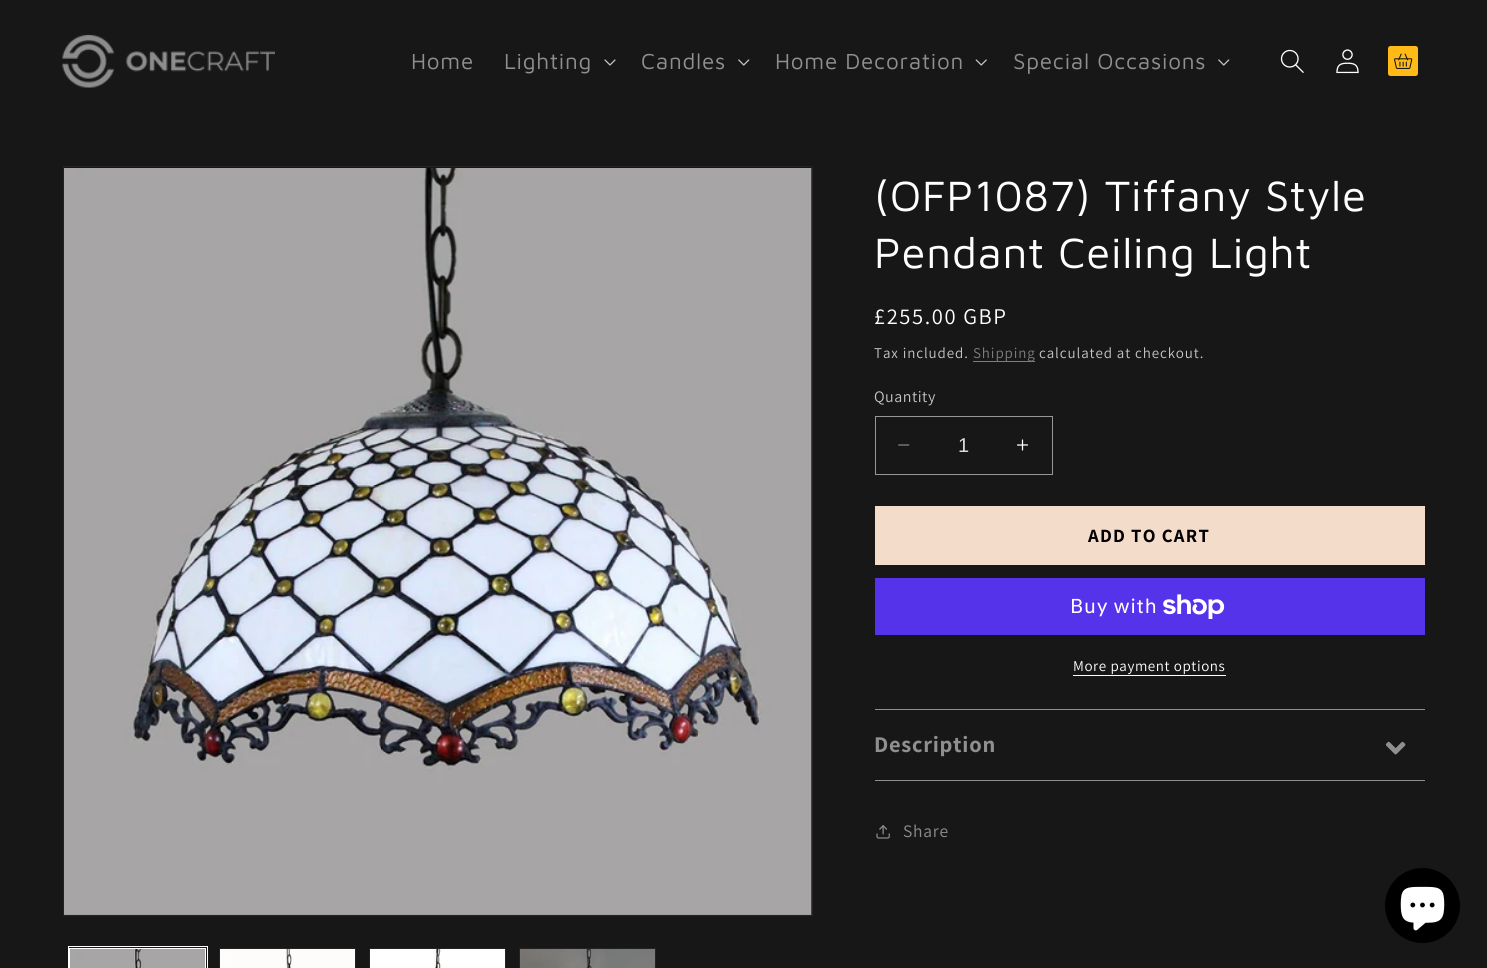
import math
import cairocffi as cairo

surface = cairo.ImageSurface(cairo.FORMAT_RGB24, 1487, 968)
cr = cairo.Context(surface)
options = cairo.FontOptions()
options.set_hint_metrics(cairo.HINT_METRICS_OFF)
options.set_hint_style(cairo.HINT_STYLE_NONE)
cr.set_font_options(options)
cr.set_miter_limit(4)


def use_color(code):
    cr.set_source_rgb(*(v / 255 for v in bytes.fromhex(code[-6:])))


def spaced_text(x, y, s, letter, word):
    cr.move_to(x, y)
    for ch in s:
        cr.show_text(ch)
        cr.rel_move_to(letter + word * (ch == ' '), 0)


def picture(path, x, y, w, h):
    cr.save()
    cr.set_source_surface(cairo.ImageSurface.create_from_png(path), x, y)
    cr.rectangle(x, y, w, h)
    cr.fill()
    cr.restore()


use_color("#171717")
cr.paint()
picture("img1.png", 62, 34, 213, 54)
cr.select_font_face("Maven Pro")
cr.set_font_size(22.5)
use_color("#8f8f8f")
spaced_text(411, 69, "Home", 0.75, 0)
spaced_text(504, 69, "Lighting", 0.75, 0)
picture("img2.png", 604, 59, 12, 7)
spaced_text(641, 69, "Candles", 0.75, 0)
picture("img3.png", 738, 59, 12, 7)
spaced_text(775, 69, "Home Decoration", 0.75, 0)
picture("img4.png", 975, 59, 12, 7)
spaced_text(1013, 69, "Special Occasions", 0.75, 0)
picture("img3.png", 1218, 59, 12, 7)
picture("img5.png", 1280, 49, 24, 24)
picture("img6.png", 1336, 49, 23, 25)
picture("img7.png", 1388, 46, 30, 30)
cr.rectangle(63.5, 166.5, 749, 749)
use_color("#232323")
cr.set_line_width(1)
cr.stroke()
picture("img8.png", 64, 168, 748, 747)
cr.rectangle(68.5, 946.5, 139, 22)
use_color("#ffffff")
cr.stroke()
cr.rectangle(69.5, 948.5, 136, 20)
cr.stroke()
picture("img9.png", 70, 949, 135, 19)
cr.rectangle(219.5, 948.5, 136, 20)
use_color("#232323")
cr.stroke()
picture("img10.png", 220, 949, 135, 19)
cr.rectangle(369.5, 948.5, 136, 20)
cr.stroke()
picture("img11.png", 370, 949, 135, 19)
cr.rectangle(519.5, 948.5, 136, 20)
cr.stroke()
picture("img12.png", 520, 949, 135, 19)
cr.set_font_size(43.75)
use_color("#ffffff")
spaced_text(874, 211, "(OFP1087) Tiffany Style", 0.75, 0)
spaced_text(874, 268, "Pendant Ceiling Light", 0.75, 0)
cr.select_font_face("Assistant")
cr.set_font_size(22.5)
spaced_text(874, 324, "£255.00 GBP", 1.6, 0)
cr.set_font_size(15)
use_color("#c5c5c5")
spaced_text(874, 358, "Tax included.", 0.9, 0)
use_color("#7d7d7d")
cr.rectangle(973, 361, 62, 1)
cr.fill()
spaced_text(973, 358, "Shipping", 0.9, 0)
use_color("#c5c5c5")
spaced_text(1039, 358, "calculated at checkout.", 0.9, 0)
cr.set_font_size(16)
spaced_text(874, 402, "Quantity", 0.5, 0)
picture("img13.png", 898, 444, 12, 2)
picture("img14.png", 1017, 439, 12, 12)
cr.rectangle(875.5, 416.5, 177, 58)
use_color("#979797")
cr.stroke()
cr.select_font_face("Liberation Sans")
cr.set_font_size(20)
use_color("#dcdcdc")
cr.move_to(958, 452)
cr.show_text("1")
use_color("#f4dccb")
cr.rectangle(875, 506, 550, 59)
cr.fill()
cr.select_font_face("Assistant", cairo.FONT_SLANT_NORMAL, cairo.FONT_WEIGHT_BOLD)
cr.set_font_size(18.75)
use_color("#000000")
spaced_text(1088, 542, "ADD TO CART", 1.25, 0)
use_color("#5433eb")
cr.rectangle(875, 578, 550, 57)
cr.fill()
cr.select_font_face("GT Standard")
cr.set_font_size(20)
use_color("#ffffff")
spaced_text(1070, 613, "Buy with", 0.75, 0)
picture("img15.png", 1163, 594, 62, 25)
cr.select_font_face("Assistant")
cr.set_font_size(15)
spaced_text(1073, 671, "More payment options", 0.6, 0)
cr.rectangle(1073, 675, 153, 1)
cr.fill()
use_color("#8f8f8f")
cr.rectangle(875, 709, 550, 1)
cr.fill()
cr.rectangle(875, 780, 550, 1)
cr.fill()
cr.select_font_face("Assistant", cairo.FONT_SLANT_NORMAL, cairo.FONT_WEIGHT_BOLD)
cr.set_font_size(22.5)
spaced_text(874, 752, "Description", 0.75, 0)
picture("img16.png", 1385, 741, 21, 14)
picture("img17.png", 876, 825, 14, 14)
cr.select_font_face("Assistant")
cr.set_font_size(17.5)
spaced_text(903, 837, "Share", 0.75, 0)
use_color("#000000")
cr.new_path()
cr.arc(1422.5, 905.5, 37.5, 0, 2 * math.pi)
cr.fill()
picture("img18.png", 1400, 886, 45, 45)
surface.write_to_png("result.png")
